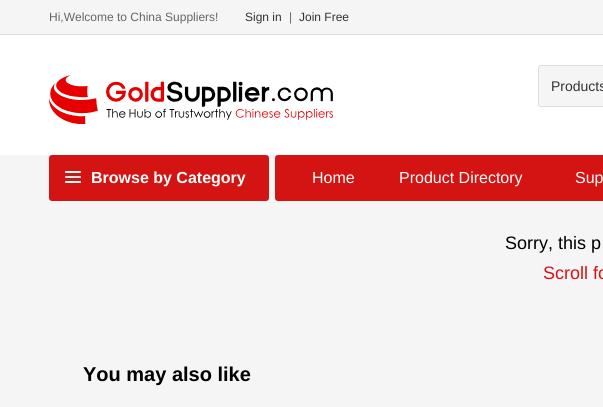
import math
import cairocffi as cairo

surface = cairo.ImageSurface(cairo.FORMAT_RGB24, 603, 407)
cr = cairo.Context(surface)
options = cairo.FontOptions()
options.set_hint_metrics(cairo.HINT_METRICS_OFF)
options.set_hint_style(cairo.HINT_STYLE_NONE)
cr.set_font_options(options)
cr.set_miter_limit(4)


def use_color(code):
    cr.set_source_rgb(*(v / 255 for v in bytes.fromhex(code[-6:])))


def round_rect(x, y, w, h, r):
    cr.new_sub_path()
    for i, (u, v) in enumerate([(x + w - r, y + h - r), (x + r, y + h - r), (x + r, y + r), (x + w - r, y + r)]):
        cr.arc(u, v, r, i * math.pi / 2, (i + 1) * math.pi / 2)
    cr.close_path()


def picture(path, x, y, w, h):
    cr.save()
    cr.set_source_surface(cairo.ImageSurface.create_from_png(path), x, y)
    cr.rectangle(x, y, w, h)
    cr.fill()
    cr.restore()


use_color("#f5f5f5")
cr.paint()
use_color("#dddddd")
cr.rectangle(0, 34, 603, 1)
cr.fill()
cr.select_font_face("Liberation Sans")
cr.set_font_size(12)
use_color("#666666")
cr.move_to(49, 21)
cr.show_text("Hi,Welcome to China Suppliers!")
use_color("#333333")
cr.move_to(245, 21)
cr.show_text("Sign in")
use_color("#666666")
cr.move_to(289, 21)
cr.show_text("|")
use_color("#333333")
cr.move_to(299, 21)
cr.show_text("Join Free")
use_color("#ffffff")
cr.rectangle(0, 35, 603, 120)
cr.fill()
picture("img1.png", 49, 75, 284, 49)
use_color("#f5f5f5")
cr.new_path()
cr.move_to(541, 65.5)
cr.line_to(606.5, 65.5)
cr.line_to(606.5, 106.5)
cr.line_to(541, 106.5)
cr.curve_to(539.5, 106.5, 538.5, 105.5, 538.5, 104)
cr.line_to(538.5, 68)
cr.curve_to(538.5, 66.5, 539.5, 65.5, 541, 65.5)
cr.close_path()
cr.fill_preserve()
use_color("#dddddd")
cr.set_line_width(1)
cr.stroke()
cr.set_font_size(14)
use_color("#333333")
cr.move_to(551, 91)
cr.show_text("Products")
use_color("#d41313")
round_rect(49, 155, 220, 46, 3)
cr.fill()
picture("img2.png", 65, 170, 16, 31)
cr.select_font_face("Liberation Sans", cairo.FONT_SLANT_NORMAL, cairo.FONT_WEIGHT_BOLD)
cr.set_font_size(16)
use_color("#ffffff")
cr.move_to(91, 183)
cr.show_text("Browse by Category")
use_color("#d41313")
round_rect(275, 155, 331, 46, 3)
cr.fill()
cr.select_font_face("Liberation Sans")
use_color("#ffffff")
cr.move_to(312, 183)
cr.show_text("Home")
cr.move_to(399, 183)
cr.show_text("Product Directory")
cr.move_to(575, 183)
cr.show_text("Sup")
cr.set_font_size(18)
use_color("#000000")
cr.move_to(505, 249)
cr.show_text("Sorry, this p")
use_color("#d41313")
cr.move_to(543, 279)
cr.show_text("Scroll fo")
cr.select_font_face("Liberation Sans", cairo.FONT_SLANT_NORMAL, cairo.FONT_WEIGHT_BOLD)
cr.set_font_size(20)
use_color("#000000")
cr.move_to(83, 381)
cr.show_text("You may also like")
surface.write_to_png("result.png")
